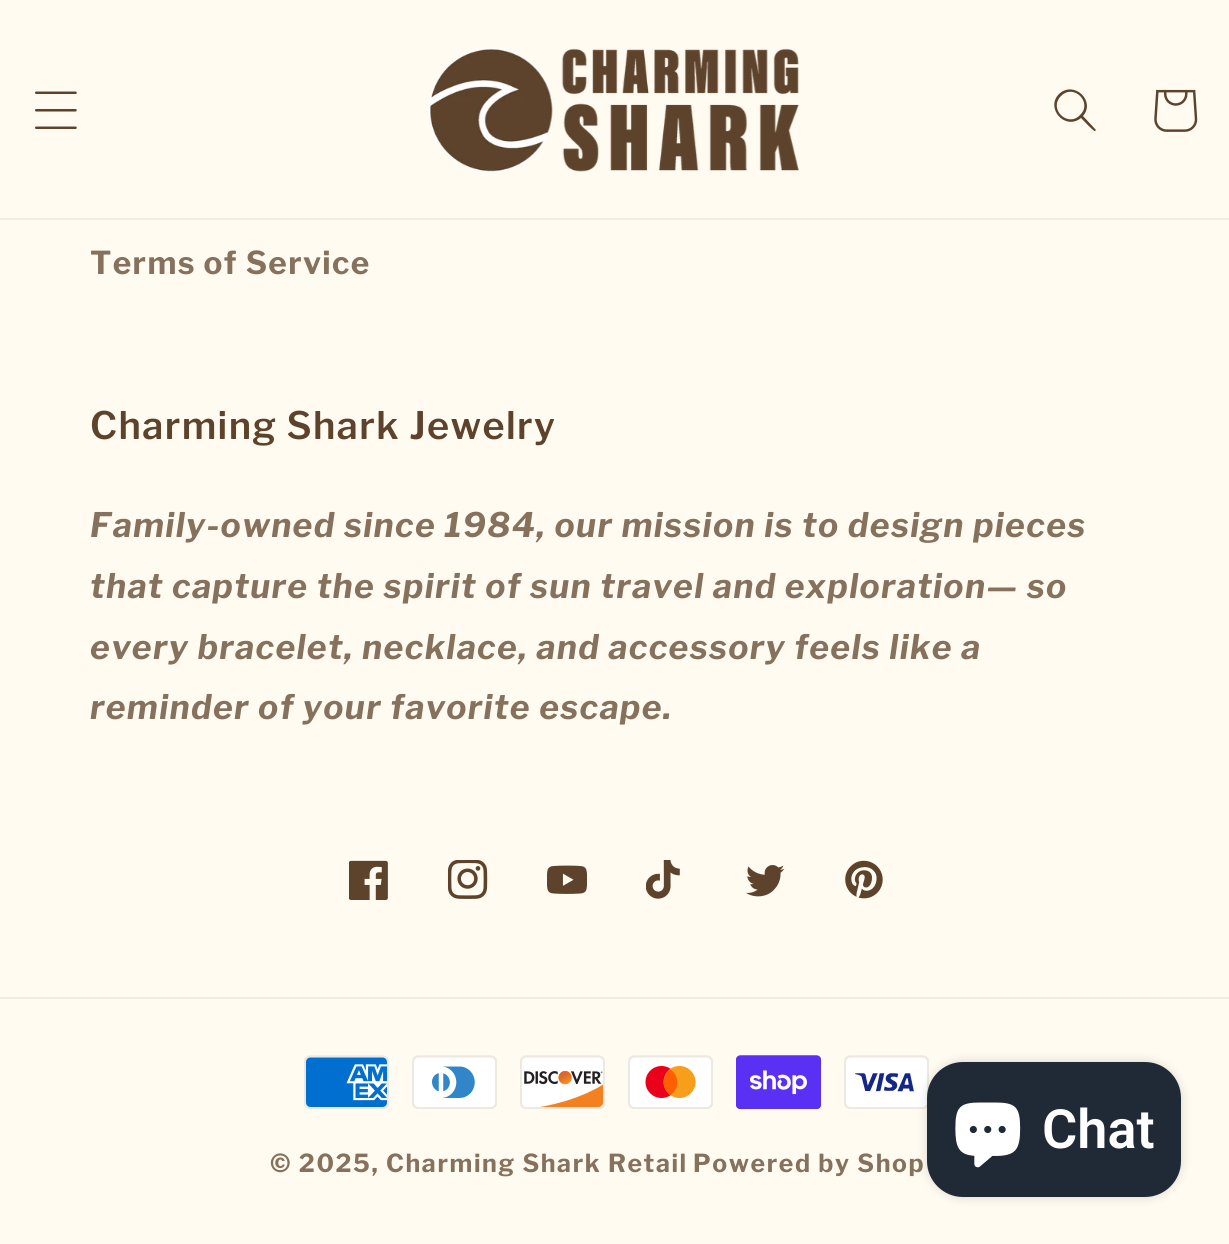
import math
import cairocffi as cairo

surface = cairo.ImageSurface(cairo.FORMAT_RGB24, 1229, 1244)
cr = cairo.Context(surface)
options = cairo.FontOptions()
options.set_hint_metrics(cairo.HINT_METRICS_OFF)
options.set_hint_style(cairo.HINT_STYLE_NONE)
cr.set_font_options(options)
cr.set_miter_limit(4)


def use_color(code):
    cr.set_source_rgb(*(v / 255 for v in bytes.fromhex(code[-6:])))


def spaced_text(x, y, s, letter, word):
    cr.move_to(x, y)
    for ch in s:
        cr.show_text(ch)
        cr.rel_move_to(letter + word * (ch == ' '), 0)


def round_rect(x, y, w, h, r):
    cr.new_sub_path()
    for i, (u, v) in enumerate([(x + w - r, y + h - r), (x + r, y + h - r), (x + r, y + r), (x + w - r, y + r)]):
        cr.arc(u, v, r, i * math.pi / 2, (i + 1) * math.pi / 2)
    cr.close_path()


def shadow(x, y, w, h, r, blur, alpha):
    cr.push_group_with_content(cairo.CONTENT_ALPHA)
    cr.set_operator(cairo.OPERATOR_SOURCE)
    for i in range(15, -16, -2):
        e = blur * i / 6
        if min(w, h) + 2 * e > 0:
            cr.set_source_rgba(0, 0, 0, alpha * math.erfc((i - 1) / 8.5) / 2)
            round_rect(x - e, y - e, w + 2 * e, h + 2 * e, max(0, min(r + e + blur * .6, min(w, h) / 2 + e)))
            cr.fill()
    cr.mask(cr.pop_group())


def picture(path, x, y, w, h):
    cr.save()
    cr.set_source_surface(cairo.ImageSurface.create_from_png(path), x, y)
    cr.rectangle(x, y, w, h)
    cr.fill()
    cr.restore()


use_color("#fffbf1")
cr.paint()
use_color("#f2ece1")
cr.rectangle(0, 218, 1229, 2)
cr.fill()
picture("img1.png", 35, 91, 42, 38)
picture("img2.png", 428, 47, 371, 125)
use_color("#5d432c")
cr.set_fill_rule(cairo.FILL_RULE_EVEN_ODD)
cr.new_path()
cr.move_to(1080, 115)
cr.curve_to(1068, 128, 1048, 109, 1061, 96)
cr.curve_to(1074, 83, 1093, 103, 1080, 115)
cr.close_path()
cr.move_to(1081, 118)
cr.curve_to(1065, 131, 1045, 108, 1059, 94)
cr.curve_to(1074, 80, 1096, 101, 1083, 116)
cr.line_to(1096, 130)
cr.line_to(1095, 131)
cr.curve_to(1094, 132, 1083, 120, 1081, 118)
cr.close_path()
cr.fill()
picture("img3.png", 1154, 89, 44, 43)
cr.select_font_face("Libre Franklin", cairo.FONT_SLANT_NORMAL, cairo.FONT_WEIGHT_BOLD)
cr.set_font_size(31.5)
use_color("#86715d")
spaced_text(90, 274, "Terms of Service", 1.35, 0)
cr.select_font_face("Libre Franklin SemiBold")
cr.set_font_size(37.75)
use_color("#5d432c")
spaced_text(90, 439, "Charming Shark Jewelry", 1.4, 0)
cr.select_font_face("Libre Franklin", cairo.FONT_SLANT_ITALIC, cairo.FONT_WEIGHT_BOLD)
cr.set_font_size(33.75)
use_color("#86715d")
spaced_text(90, 537, "Family-owned since 1984, our mission is to design pieces", 1.35, 0)
spaced_text(90, 598, "that capture the spirit of sun travel and exploration— so", 1.35, 0)
spaced_text(90, 659, "every bracelet, necklace, and accessory feels like a", 1.35, 0)
spaced_text(90, 719, "reminder of your favorite escape.", 1.35, 0)
picture("img4.png", 349, 860, 39, 40)
picture("img5.png", 448, 860, 40, 39)
picture("img6.png", 547, 865, 40, 29)
picture("img7.png", 646, 860, 34, 39)
picture("img8.png", 746, 865, 39, 32)
picture("img9.png", 845, 860, 38, 39)
use_color("#f2ece1")
cr.rectangle(0, 997, 1229, 2)
cr.fill()
picture("img10.png", 304, 1055, 85, 54)
picture("img11.png", 412, 1055, 85, 54)
picture("img12.png", 520, 1055, 85, 54)
picture("img13.png", 628, 1055, 85, 54)
picture("img14.png", 736, 1055, 85, 54)
picture("img15.png", 844, 1055, 85, 54)
cr.select_font_face("Libre Franklin", cairo.FONT_SLANT_NORMAL, cairo.FONT_WEIGHT_BOLD)
cr.set_font_size(24.75)
use_color("#86715d")
spaced_text(270, 1172, "© 2025, Charming Shark Retail", 1.6, 0)
spaced_text(693, 1172, "Powered by Shop", 1.6, 0)
use_color("#000000")
shadow(927, 1062, 254, 135, 36, 5.5, 0.15)
use_color("#202a36")
round_rect(927, 1062, 254, 135, 36)
cr.fill()
picture("img16.png", 955, 1102, 66, 66)
cr.select_font_face("Roboto SemiBold")
cr.set_font_size(54)
use_color("#ffffff")
cr.move_to(1042, 1148)
cr.show_text("Chat")
surface.write_to_png("result.png")
